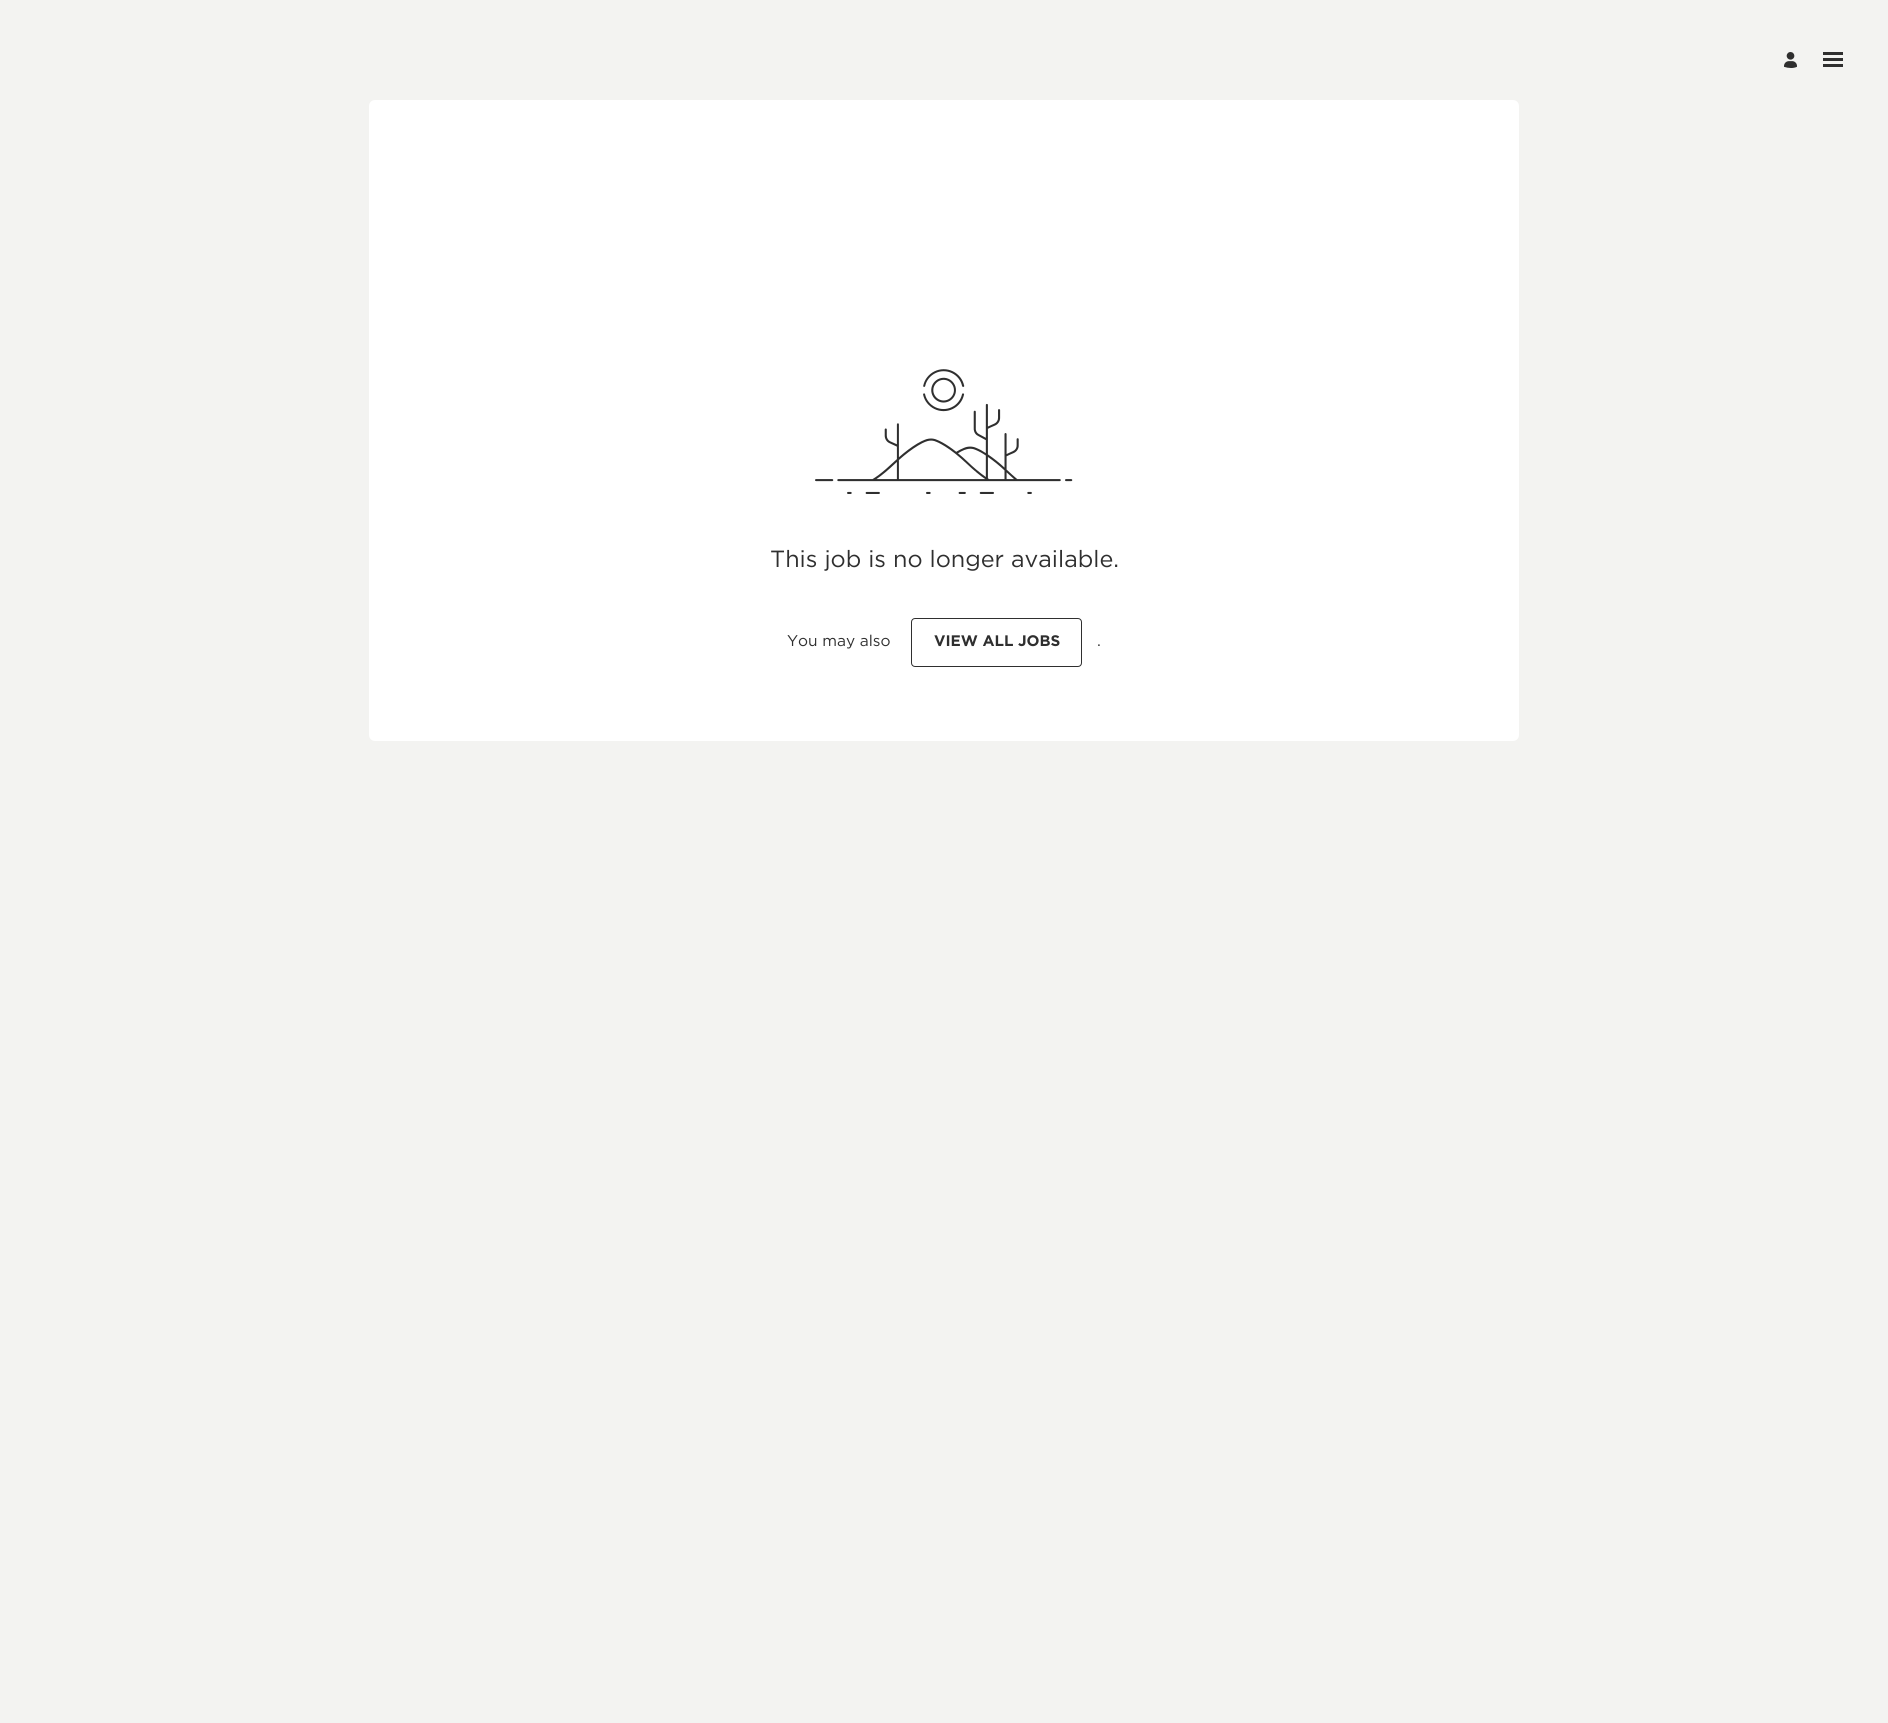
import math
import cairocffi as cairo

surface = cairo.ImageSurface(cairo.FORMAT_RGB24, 1888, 1723)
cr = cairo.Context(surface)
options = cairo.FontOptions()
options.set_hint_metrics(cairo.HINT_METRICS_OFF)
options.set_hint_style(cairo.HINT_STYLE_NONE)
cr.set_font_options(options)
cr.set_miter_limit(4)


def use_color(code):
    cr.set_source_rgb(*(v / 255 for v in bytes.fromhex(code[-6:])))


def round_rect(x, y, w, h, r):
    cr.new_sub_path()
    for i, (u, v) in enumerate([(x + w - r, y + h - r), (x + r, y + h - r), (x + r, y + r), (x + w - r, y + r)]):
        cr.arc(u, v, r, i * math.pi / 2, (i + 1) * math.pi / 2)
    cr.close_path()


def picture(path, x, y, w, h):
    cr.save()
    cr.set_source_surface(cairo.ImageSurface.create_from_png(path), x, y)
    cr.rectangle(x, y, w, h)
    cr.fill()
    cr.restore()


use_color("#f3f3f1")
cr.paint()
picture("img1.png", 1784, 52, 13, 16)
use_color("#2f2f2f")
cr.rectangle(1823, 52, 20, 3)
cr.fill()
cr.rectangle(1823, 58, 20, 3)
cr.fill()
cr.rectangle(1823, 64, 20, 3)
cr.fill()
use_color("#ffffff")
round_rect(369, 100, 1150, 641, 6)
cr.fill()
picture("img2.png", 815, 369, 258, 125)
cr.select_font_face("Gotham")
cr.set_font_size(23.4)
use_color("#2f2f2f")
cr.move_to(770, 567)
cr.show_text("This job is no longer available.")
cr.set_font_size(15.5)
cr.move_to(787, 646)
cr.show_text("You may also")
round_rect(911.5, 618.5, 170, 48, 3.5)
cr.set_line_width(1)
cr.stroke()
cr.select_font_face("Gotham", cairo.FONT_SLANT_NORMAL, cairo.FONT_WEIGHT_BOLD)
cr.set_font_size(15.25)
cr.move_to(934, 646)
cr.show_text("VIEW ALL JOBS")
cr.select_font_face("Gotham")
cr.set_font_size(15.5)
cr.move_to(1097, 646)
cr.show_text(".")
surface.write_to_png("result.png")
